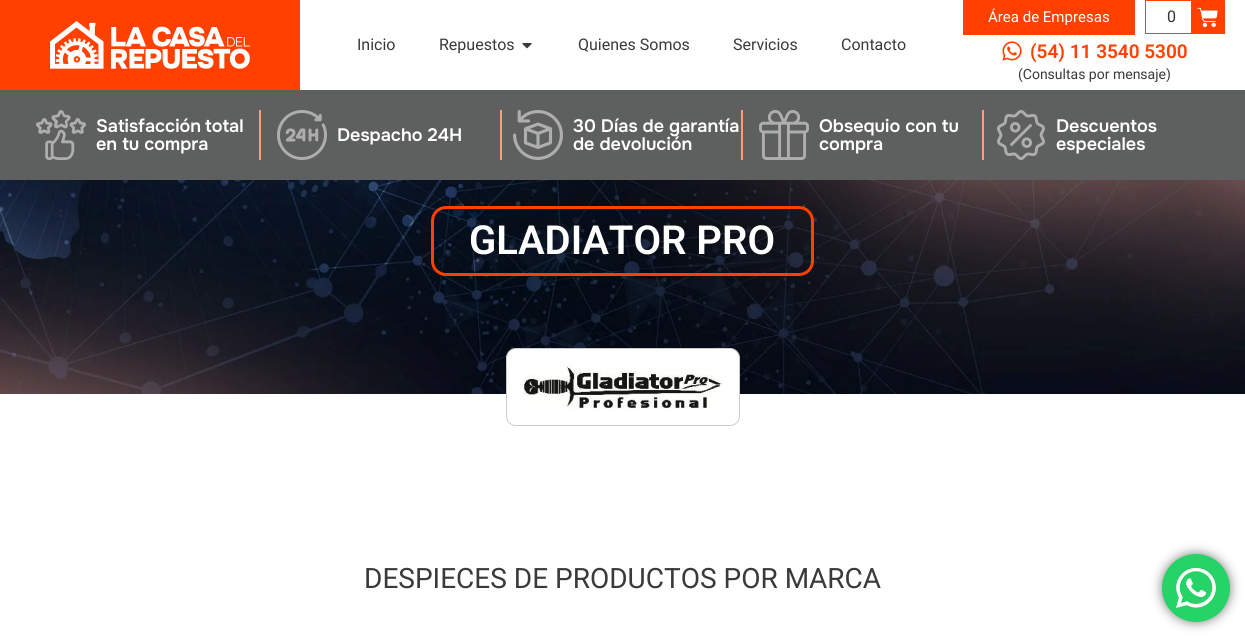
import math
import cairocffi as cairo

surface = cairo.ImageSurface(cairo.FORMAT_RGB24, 1245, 637)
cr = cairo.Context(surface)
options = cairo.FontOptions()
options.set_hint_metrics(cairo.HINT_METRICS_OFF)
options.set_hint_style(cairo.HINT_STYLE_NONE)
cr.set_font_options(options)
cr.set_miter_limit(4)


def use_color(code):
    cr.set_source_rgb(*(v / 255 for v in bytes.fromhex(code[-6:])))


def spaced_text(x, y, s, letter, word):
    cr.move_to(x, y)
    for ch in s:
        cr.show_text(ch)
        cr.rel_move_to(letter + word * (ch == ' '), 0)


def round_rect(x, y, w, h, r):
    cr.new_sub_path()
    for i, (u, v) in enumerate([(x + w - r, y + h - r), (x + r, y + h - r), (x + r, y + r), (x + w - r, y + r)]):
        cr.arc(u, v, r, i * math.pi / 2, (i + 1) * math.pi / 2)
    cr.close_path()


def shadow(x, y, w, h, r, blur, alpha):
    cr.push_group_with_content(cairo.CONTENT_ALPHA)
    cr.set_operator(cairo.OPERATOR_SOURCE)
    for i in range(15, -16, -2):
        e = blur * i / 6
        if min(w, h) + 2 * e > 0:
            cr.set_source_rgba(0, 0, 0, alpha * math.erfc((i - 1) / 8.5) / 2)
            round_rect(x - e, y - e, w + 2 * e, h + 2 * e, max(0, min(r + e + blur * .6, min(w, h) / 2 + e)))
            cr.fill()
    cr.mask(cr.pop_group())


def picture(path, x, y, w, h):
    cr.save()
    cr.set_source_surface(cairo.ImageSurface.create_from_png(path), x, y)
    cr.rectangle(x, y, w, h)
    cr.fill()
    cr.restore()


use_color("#ffffff")
cr.paint()
use_color("#ff4000")
cr.rectangle(0, 0, 300, 90)
cr.fill()
picture("img1.png", 50, 21, 200, 48)
cr.select_font_face("Roboto")
cr.set_font_size(16)
use_color("#3a3a3a")
cr.move_to(357, 50)
cr.show_text("Inicio")
cr.move_to(439, 50)
cr.show_text("Repuestos")
picture("img2.png", 522, 43, 10, 6)
cr.move_to(578, 50)
cr.show_text("Quienes Somos")
cr.move_to(733, 50)
cr.show_text("Servicios")
cr.move_to(841, 50)
cr.show_text("Contacto")
use_color("#ff4000")
cr.rectangle(963, 0, 172, 35)
cr.fill()
cr.set_font_size(15)
use_color("#ffffff")
cr.move_to(988, 22)
cr.show_text("Área de Empresas")
cr.rectangle(1145.5, 0.5, 79, 33)
use_color("#ff4000")
cr.set_line_width(1)
cr.stroke()
cr.set_font_size(16)
use_color("#333333")
cr.move_to(1167, 22)
cr.show_text("0")
use_color("#ff4000")
cr.rectangle(1191, 1, 33, 32)
cr.fill()
picture("img3.png", 1197, 7, 21, 21)
picture("img4.png", 1002, 41, 20, 20)
cr.select_font_face("Roboto SemiBold")
cr.set_font_size(19)
cr.move_to(1030, 58)
cr.show_text("(54) 11 3540 5300")
cr.select_font_face("Roboto")
cr.set_font_size(14)
use_color("#3a3a3a")
cr.move_to(1018, 79)
cr.show_text("(Consultas por mensaje)")
use_color("#5e5f5f")
cr.rectangle(0, 90, 1245, 90)
cr.fill()
use_color("#ff9d7c")
cr.rectangle(259, 110, 2, 50)
cr.fill()
picture("img5.png", 36, 110, 50, 50)
cr.select_font_face("Onest SemiBold")
cr.set_font_size(18)
use_color("#ffffff")
spaced_text(96, 132, "Satisfacción total", 0, -1)
cr.move_to(96, 150)
cr.show_text("en tu compra")
use_color("#ff9d7c")
cr.rectangle(500, 110, 2, 50)
cr.fill()
picture("img6.png", 277, 110, 50, 50)
use_color("#ffffff")
cr.move_to(337, 141)
cr.show_text("Despacho 24H")
use_color("#ff9d7c")
cr.rectangle(741, 110, 2, 50)
cr.fill()
picture("img7.png", 513, 110, 50, 50)
use_color("#ffffff")
cr.move_to(573, 132)
cr.show_text("30 Días de garantía")
cr.move_to(573, 150)
cr.show_text("de devolución")
use_color("#ff9d7c")
cr.rectangle(982, 110, 2, 50)
cr.fill()
picture("img8.png", 759, 110, 50, 50)
use_color("#ffffff")
cr.move_to(819, 132)
cr.show_text("Obsequio con tu")
cr.move_to(819, 150)
cr.show_text("compra")
picture("img9.png", 997, 110, 48, 50)
cr.move_to(1056, 132)
cr.show_text("Descuentos")
cr.move_to(1056, 150)
cr.show_text("especiales")
picture("img10.png", 0, 180, 1245, 214)
round_rect(432.5, 207.5, 380, 67, 13.5)
use_color("#ff4000")
cr.set_line_width(3)
cr.stroke()
cr.select_font_face("Roboto SemiBold")
cr.set_font_size(40)
use_color("#ffffff")
cr.move_to(469, 254)
cr.show_text("GLADIATOR PRO")
round_rect(506.5, 348.5, 233, 77, 9.5)
cr.fill_preserve()
use_color("#cccccc")
cr.set_line_width(1)
cr.stroke()
picture("img11.png", 523, 365, 200, 44)
cr.select_font_face("Roboto")
cr.set_font_size(28)
use_color("#3a3a3a")
cr.move_to(364, 588)
cr.show_text("DESPIECES DE PRODUCTOS POR MARCA")
use_color("#000000")
shadow(1162, 554, 68, 68, 34, 5.5, 0.5)
use_color("#25d366")
cr.arc(1196, 588, 34, 0, 2 * math.pi)
cr.fill()
picture("img12.png", 1176, 568, 40, 40)
surface.write_to_png("result.png")
